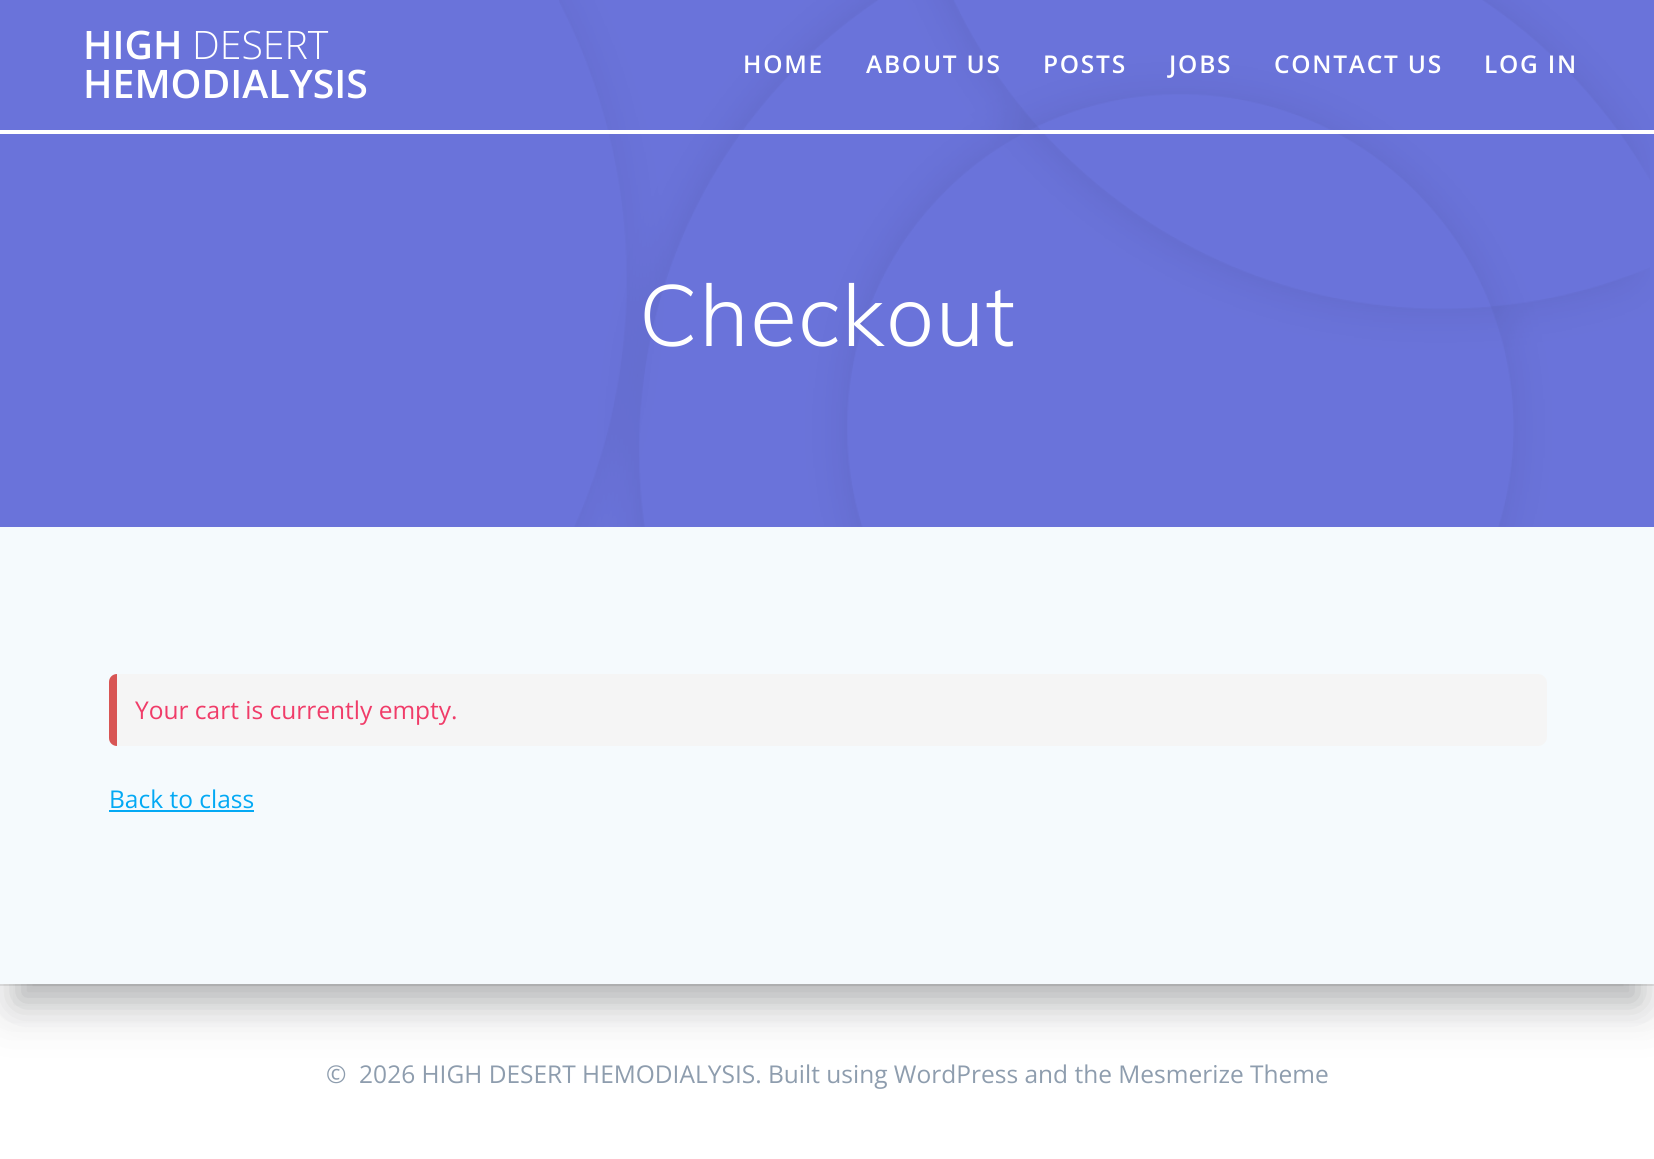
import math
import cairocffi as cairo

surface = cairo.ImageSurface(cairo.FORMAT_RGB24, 1654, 1159)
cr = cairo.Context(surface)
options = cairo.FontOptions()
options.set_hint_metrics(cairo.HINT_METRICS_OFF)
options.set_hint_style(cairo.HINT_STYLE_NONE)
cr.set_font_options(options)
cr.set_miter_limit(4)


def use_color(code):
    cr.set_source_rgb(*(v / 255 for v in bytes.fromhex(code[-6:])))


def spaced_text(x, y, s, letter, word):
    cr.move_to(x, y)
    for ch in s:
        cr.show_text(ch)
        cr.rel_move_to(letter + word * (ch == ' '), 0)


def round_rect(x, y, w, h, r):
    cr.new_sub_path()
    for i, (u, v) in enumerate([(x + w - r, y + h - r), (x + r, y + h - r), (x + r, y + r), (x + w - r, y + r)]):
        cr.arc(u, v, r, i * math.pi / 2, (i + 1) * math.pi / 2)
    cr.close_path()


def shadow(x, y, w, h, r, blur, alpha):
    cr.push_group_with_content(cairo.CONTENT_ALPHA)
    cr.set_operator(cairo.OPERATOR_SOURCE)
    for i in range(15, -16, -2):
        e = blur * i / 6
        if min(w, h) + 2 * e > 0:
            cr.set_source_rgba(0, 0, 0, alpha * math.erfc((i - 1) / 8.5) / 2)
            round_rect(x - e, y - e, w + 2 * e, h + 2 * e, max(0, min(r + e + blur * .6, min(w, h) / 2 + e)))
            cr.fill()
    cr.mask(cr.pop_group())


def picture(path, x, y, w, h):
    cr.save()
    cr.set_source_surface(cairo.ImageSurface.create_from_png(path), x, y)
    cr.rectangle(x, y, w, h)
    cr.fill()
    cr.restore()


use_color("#ffffff")
cr.paint()
use_color("#6a73da")
cr.rectangle(0, 0, 1654, 527)
cr.fill()
picture("img1.png", 559, 0, 1091, 527)
use_color("#ffffff")
cr.rectangle(0, 130, 1654, 4)
cr.fill()
cr.select_font_face("Open Sans SemiBold")
cr.set_font_size(39.25)
cr.move_to(83, 59)
cr.show_text("HIGH")
cr.select_font_face("Open Sans Light")
cr.move_to(192, 59)
cr.show_text("DESERT")
cr.select_font_face("Open Sans SemiBold")
cr.move_to(83, 98)
cr.show_text("HEMODIALYSIS")
cr.set_font_size(24.5)
spaced_text(743, 73, "HOME", 1.75, 0)
spaced_text(866, 73, "ABOUT US", 1.75, 0)
spaced_text(1043, 73, "POSTS", 1.75, 0)
spaced_text(1169, 73, "JOBS", 1.75, 0)
spaced_text(1274, 73, "CONTACT US", 1.75, 0)
spaced_text(1484, 73, "LOG IN", 1.75, 0)
cr.select_font_face("Muli Light")
cr.set_font_size(85.75)
spaced_text(639, 346, "Checkout", 1.5, 0)
use_color("#e8e8e8")
cr.rectangle(0, 984, 1654, 2)
cr.fill()
use_color("#000000")
shadow(0, 562, 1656, 457, 0, 26, 0.08)
use_color("#313439")
shadow(18, 579, 1620, 422, 0, 17.5, 0.3)
use_color("#f5fafd")
cr.rectangle(0, 527, 1654, 457)
cr.fill()
use_color("#f5f5f5")
round_rect(109, 674, 1438, 72, 9)
cr.fill()
use_color("#d85554")
cr.new_path()
cr.move_to(117, 674)
cr.line_to(117, 746)
cr.curve_to(112.5, 746, 109, 742.5, 109, 738)
cr.line_to(109, 682)
cr.curve_to(109, 677.5, 112.5, 674, 117, 674)
cr.close_path()
cr.fill()
cr.select_font_face("Open Sans")
cr.set_font_size(24.5)
use_color("#f03c69")
cr.move_to(135, 719)
cr.show_text("Your cart is currently empty.")
use_color("#03a9f4")
cr.move_to(109, 808)
cr.show_text("Back to class")
cr.rectangle(109, 810, 145, 2)
cr.fill()
use_color("#8e9dae")
cr.move_to(326, 1083)
cr.show_text("©  2026 HIGH DESERT HEMODIALYSIS. Built using WordPress and the Mesmerize Theme")
surface.write_to_png("result.png")
